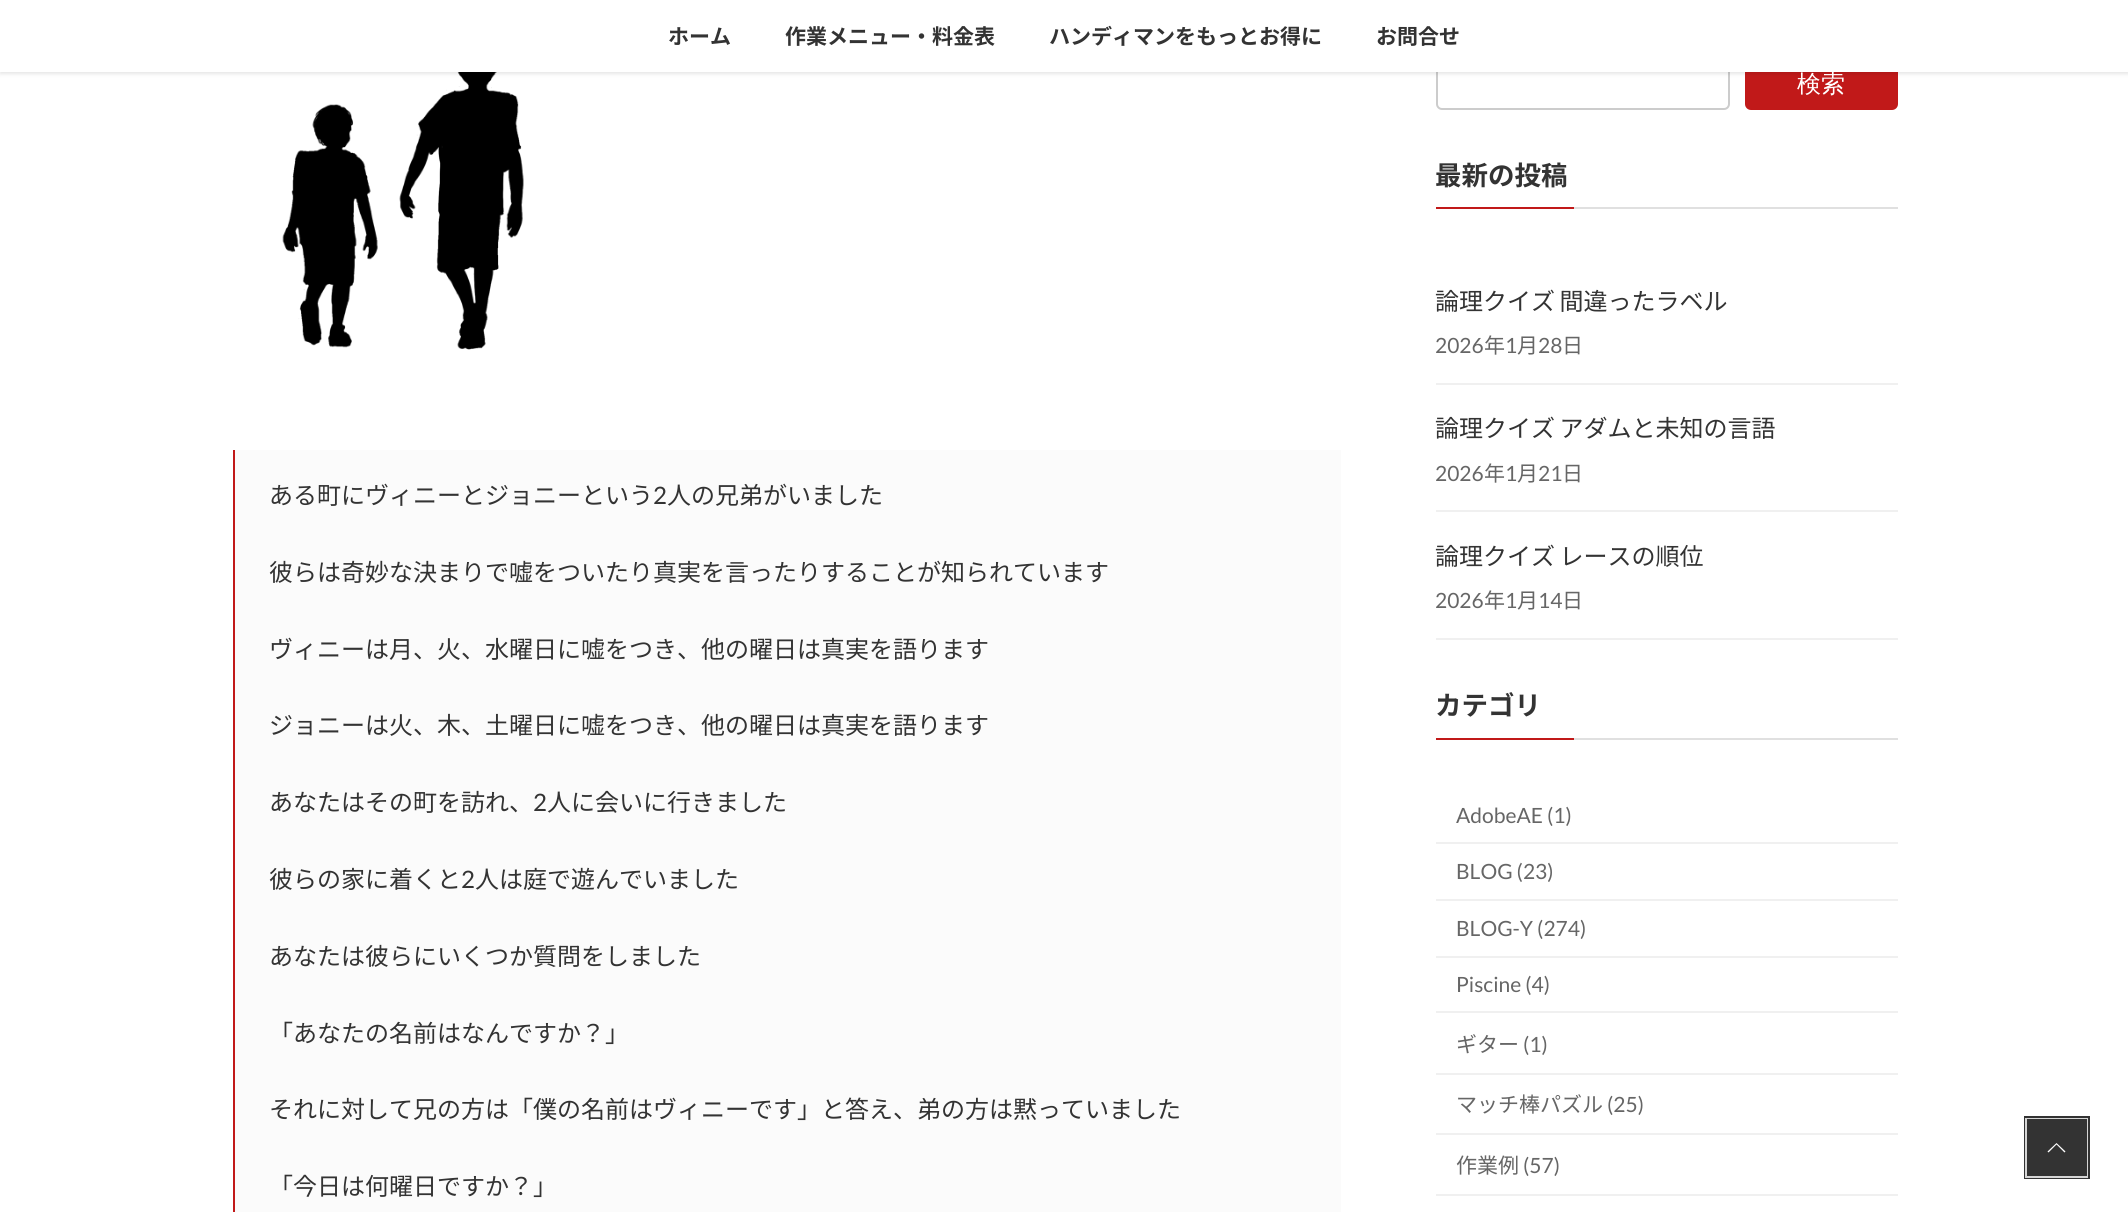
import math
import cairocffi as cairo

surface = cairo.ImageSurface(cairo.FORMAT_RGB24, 2128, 1212)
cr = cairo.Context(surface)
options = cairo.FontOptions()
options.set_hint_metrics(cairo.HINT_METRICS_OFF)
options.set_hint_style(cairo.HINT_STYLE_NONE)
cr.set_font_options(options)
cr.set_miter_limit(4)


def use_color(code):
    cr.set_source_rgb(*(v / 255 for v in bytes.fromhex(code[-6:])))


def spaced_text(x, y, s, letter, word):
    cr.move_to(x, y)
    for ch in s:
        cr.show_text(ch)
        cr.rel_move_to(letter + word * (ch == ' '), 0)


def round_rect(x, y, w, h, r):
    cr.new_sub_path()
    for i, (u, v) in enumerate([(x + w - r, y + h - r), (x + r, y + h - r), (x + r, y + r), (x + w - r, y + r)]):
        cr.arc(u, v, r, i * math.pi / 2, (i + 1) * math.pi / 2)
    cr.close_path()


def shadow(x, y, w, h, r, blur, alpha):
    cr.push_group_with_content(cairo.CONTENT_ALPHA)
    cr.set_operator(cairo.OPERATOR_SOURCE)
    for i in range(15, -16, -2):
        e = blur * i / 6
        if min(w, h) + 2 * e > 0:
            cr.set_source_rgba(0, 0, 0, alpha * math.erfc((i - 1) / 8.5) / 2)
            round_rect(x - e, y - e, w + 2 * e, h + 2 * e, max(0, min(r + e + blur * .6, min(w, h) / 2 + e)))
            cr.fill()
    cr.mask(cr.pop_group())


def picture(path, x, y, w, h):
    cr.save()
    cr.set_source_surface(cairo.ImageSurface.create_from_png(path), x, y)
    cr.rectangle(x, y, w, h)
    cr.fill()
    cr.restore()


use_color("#ffffff")
cr.paint()
picture("img1.png", 282, 72, 242, 278)
round_rect(1437, 61, 292, 48, 5)
use_color("#cccccc")
cr.stroke()
use_color("#c11919")
round_rect(1745, 60, 153, 50, 6)
cr.fill()
use_color("#000000")
shadow(0, 2, 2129, 72, 0, 2, 0.1)
use_color("#ffffff")
cr.rectangle(0, 0, 2128, 72)
cr.fill()
cr.select_font_face("Noto Sans JP", cairo.FONT_SLANT_NORMAL, cairo.FONT_WEIGHT_BOLD)
cr.set_font_size(21)
use_color("#333333")
cr.move_to(668, 44)
cr.show_text("ホーム")
cr.move_to(785, 44)
cr.show_text("作業メニュー・料金表")
cr.move_to(1049, 44)
cr.show_text("ハンディマンをもっとお得に")
cr.move_to(1376, 44)
cr.show_text("お問合せ")
use_color("#fbfbfb")
cr.rectangle(235, 450, 1106, 762)
cr.fill()
use_color("#c11919")
cr.rectangle(233, 450, 2, 762)
cr.fill()
cr.select_font_face("Noto Sans JP")
cr.set_font_size(24)
use_color("#333333")
cr.move_to(269, 504)
cr.show_text("ある町にヴィニーとジョニーという")
cr.select_font_face("Lato")
cr.move_to(653, 504)
cr.show_text("2")
cr.select_font_face("Noto Sans JP")
cr.move_to(667, 504)
cr.show_text("人の兄弟がいました")
cr.move_to(269, 581)
cr.show_text("彼らは奇妙な決まりで嘘をついたり真実を言ったりすることが知られています")
cr.move_to(269, 658)
cr.show_text("ヴィニーは月、火、水曜日に嘘をつき、他の曜日は真実を語ります")
cr.move_to(269, 734)
cr.show_text("ジョニーは火、木、土曜日に嘘をつき、他の曜日は真実を語ります")
cr.move_to(269, 811)
cr.show_text("あなたはその町を訪れ、")
cr.select_font_face("Lato")
cr.move_to(533, 811)
cr.show_text("2")
cr.select_font_face("Noto Sans JP")
cr.move_to(547, 811)
cr.show_text("人に会いに行きました")
cr.move_to(269, 888)
cr.show_text("彼らの家に着くと")
cr.select_font_face("Lato")
cr.move_to(461, 888)
cr.show_text("2")
cr.select_font_face("Noto Sans JP")
cr.move_to(475, 888)
cr.show_text("人は庭で遊んでいました")
cr.move_to(269, 965)
cr.show_text("あなたは彼らにいくつか質問をしました")
cr.move_to(269, 1042)
cr.show_text("「あなたの名前はなんですか？」")
cr.move_to(269, 1118)
cr.show_text("それに対して兄の方は「僕の名前はヴィニーです」と答え、弟の方は黙っていました")
cr.move_to(269, 1195)
cr.show_text("「今日は何曜日ですか？」")
cr.select_font_face("WenQuanYi Zen Hei Medium")
use_color("#ffffff")
cr.move_to(1797, 92)
cr.show_text("検索")
use_color("#e0e0e0")
cr.rectangle(1574, 207, 324, 2)
cr.fill()
cr.select_font_face("Noto Sans JP", cairo.FONT_SLANT_NORMAL, cairo.FONT_WEIGHT_BOLD)
cr.set_font_size(26.5)
use_color("#333333")
cr.move_to(1435, 185)
cr.show_text("最新の投稿")
use_color("#c11919")
cr.rectangle(1436, 207, 138, 2)
cr.fill()
use_color("#f0f0f0")
cr.rectangle(1436, 383, 462, 2)
cr.fill()
cr.select_font_face("Noto Sans JP")
cr.set_font_size(24)
use_color("#333333")
spaced_text(1435, 310, "論理クイズ 間違ったラベル", 0, -1)
cr.select_font_face("Lato")
cr.set_font_size(21)
use_color("#666666")
cr.move_to(1435, 353)
cr.show_text("2026")
cr.select_font_face("Noto Sans JP")
cr.move_to(1484, 353)
cr.show_text("年")
cr.select_font_face("Lato")
cr.move_to(1505, 353)
cr.show_text("1")
cr.select_font_face("Noto Sans JP")
cr.move_to(1517, 353)
cr.show_text("月")
cr.select_font_face("Lato")
cr.move_to(1538, 353)
cr.show_text("28")
cr.select_font_face("Noto Sans JP")
cr.move_to(1562, 353)
cr.show_text("日")
use_color("#f0f0f0")
cr.rectangle(1436, 510, 462, 2)
cr.fill()
cr.set_font_size(24)
use_color("#333333")
spaced_text(1435, 437, "論理クイズ アダムと未知の言語", 0, -1)
cr.select_font_face("Lato")
cr.set_font_size(21)
use_color("#666666")
cr.move_to(1435, 481)
cr.show_text("2026")
cr.select_font_face("Noto Sans JP")
cr.move_to(1484, 481)
cr.show_text("年")
cr.select_font_face("Lato")
cr.move_to(1505, 481)
cr.show_text("1")
cr.select_font_face("Noto Sans JP")
cr.move_to(1517, 481)
cr.show_text("月")
cr.select_font_face("Lato")
cr.move_to(1538, 481)
cr.show_text("21")
cr.select_font_face("Noto Sans JP")
cr.move_to(1562, 481)
cr.show_text("日")
use_color("#f0f0f0")
cr.rectangle(1436, 638, 462, 2)
cr.fill()
cr.set_font_size(24)
use_color("#333333")
spaced_text(1435, 565, "論理クイズ レースの順位", 0, -1)
cr.select_font_face("Lato")
cr.set_font_size(21)
use_color("#666666")
cr.move_to(1435, 608)
cr.show_text("2026")
cr.select_font_face("Noto Sans JP")
cr.move_to(1484, 608)
cr.show_text("年")
cr.select_font_face("Lato")
cr.move_to(1505, 608)
cr.show_text("1")
cr.select_font_face("Noto Sans JP")
cr.move_to(1517, 608)
cr.show_text("月")
cr.select_font_face("Lato")
cr.move_to(1538, 608)
cr.show_text("14")
cr.select_font_face("Noto Sans JP")
cr.move_to(1562, 608)
cr.show_text("日")
use_color("#e0e0e0")
cr.rectangle(1574, 738, 324, 2)
cr.fill()
cr.select_font_face("Noto Sans JP", cairo.FONT_SLANT_NORMAL, cairo.FONT_WEIGHT_BOLD)
cr.set_font_size(26.5)
use_color("#333333")
cr.move_to(1435, 715)
cr.show_text("カテゴリ")
use_color("#c11919")
cr.rectangle(1436, 738, 138, 2)
cr.fill()
use_color("#f0f0f0")
cr.rectangle(1436, 842, 462, 2)
cr.fill()
cr.select_font_face("Lato")
cr.set_font_size(21)
use_color("#666666")
cr.move_to(1456, 823)
cr.show_text("AdobeAE (1)")
use_color("#f0f0f0")
cr.rectangle(1436, 899, 462, 2)
cr.fill()
use_color("#666666")
cr.move_to(1456, 879)
cr.show_text("BLOG (23)")
use_color("#f0f0f0")
cr.rectangle(1436, 956, 462, 2)
cr.fill()
use_color("#666666")
cr.move_to(1456, 936)
cr.show_text("BLOG-Y (274)")
use_color("#f0f0f0")
cr.rectangle(1436, 1011, 462, 2)
cr.fill()
use_color("#666666")
cr.move_to(1456, 992)
cr.show_text("Piscine (4)")
use_color("#f0f0f0")
cr.rectangle(1436, 1073, 462, 2)
cr.fill()
cr.select_font_face("Noto Sans JP")
use_color("#666666")
cr.move_to(1456, 1052)
cr.show_text("ギター")
cr.select_font_face("Lato")
cr.move_to(1523, 1052)
cr.show_text("(1)")
use_color("#f0f0f0")
cr.rectangle(1436, 1133, 462, 2)
cr.fill()
cr.select_font_face("Noto Sans JP")
use_color("#666666")
cr.move_to(1456, 1112)
cr.show_text("マッチ棒パズル")
cr.select_font_face("Lato")
cr.move_to(1607, 1112)
cr.show_text("(25)")
use_color("#f0f0f0")
cr.rectangle(1436, 1194, 462, 2)
cr.fill()
cr.select_font_face("Noto Sans JP")
use_color("#666666")
cr.move_to(1456, 1173)
cr.show_text("作業例")
cr.select_font_face("Lato")
cr.move_to(1523, 1173)
cr.show_text("(57)")
cr.rectangle(2025.5, 1117.5, 63, 60)
use_color("#333333")
cr.set_line_width(3)
cr.stroke()
cr.rectangle(2026, 1119, 61, 58)
cr.set_source_rgba(1, 1, 1, 0.8)
cr.set_line_width(2)
cr.stroke()
use_color("#333333")
cr.rectangle(2027, 1119, 60, 57)
cr.fill()
use_color("#ffffff")
cr.new_path()
cr.move_to(2065.5, 1151.5)
cr.line_to(2064.5, 1152.5)
cr.line_to(2056.5, 1144.5)
cr.line_to(2048.5, 1152.5)
cr.line_to(2047.5, 1151.5)
cr.line_to(2056.5, 1143)
cr.close_path()
cr.fill()
surface.write_to_png("result.png")
